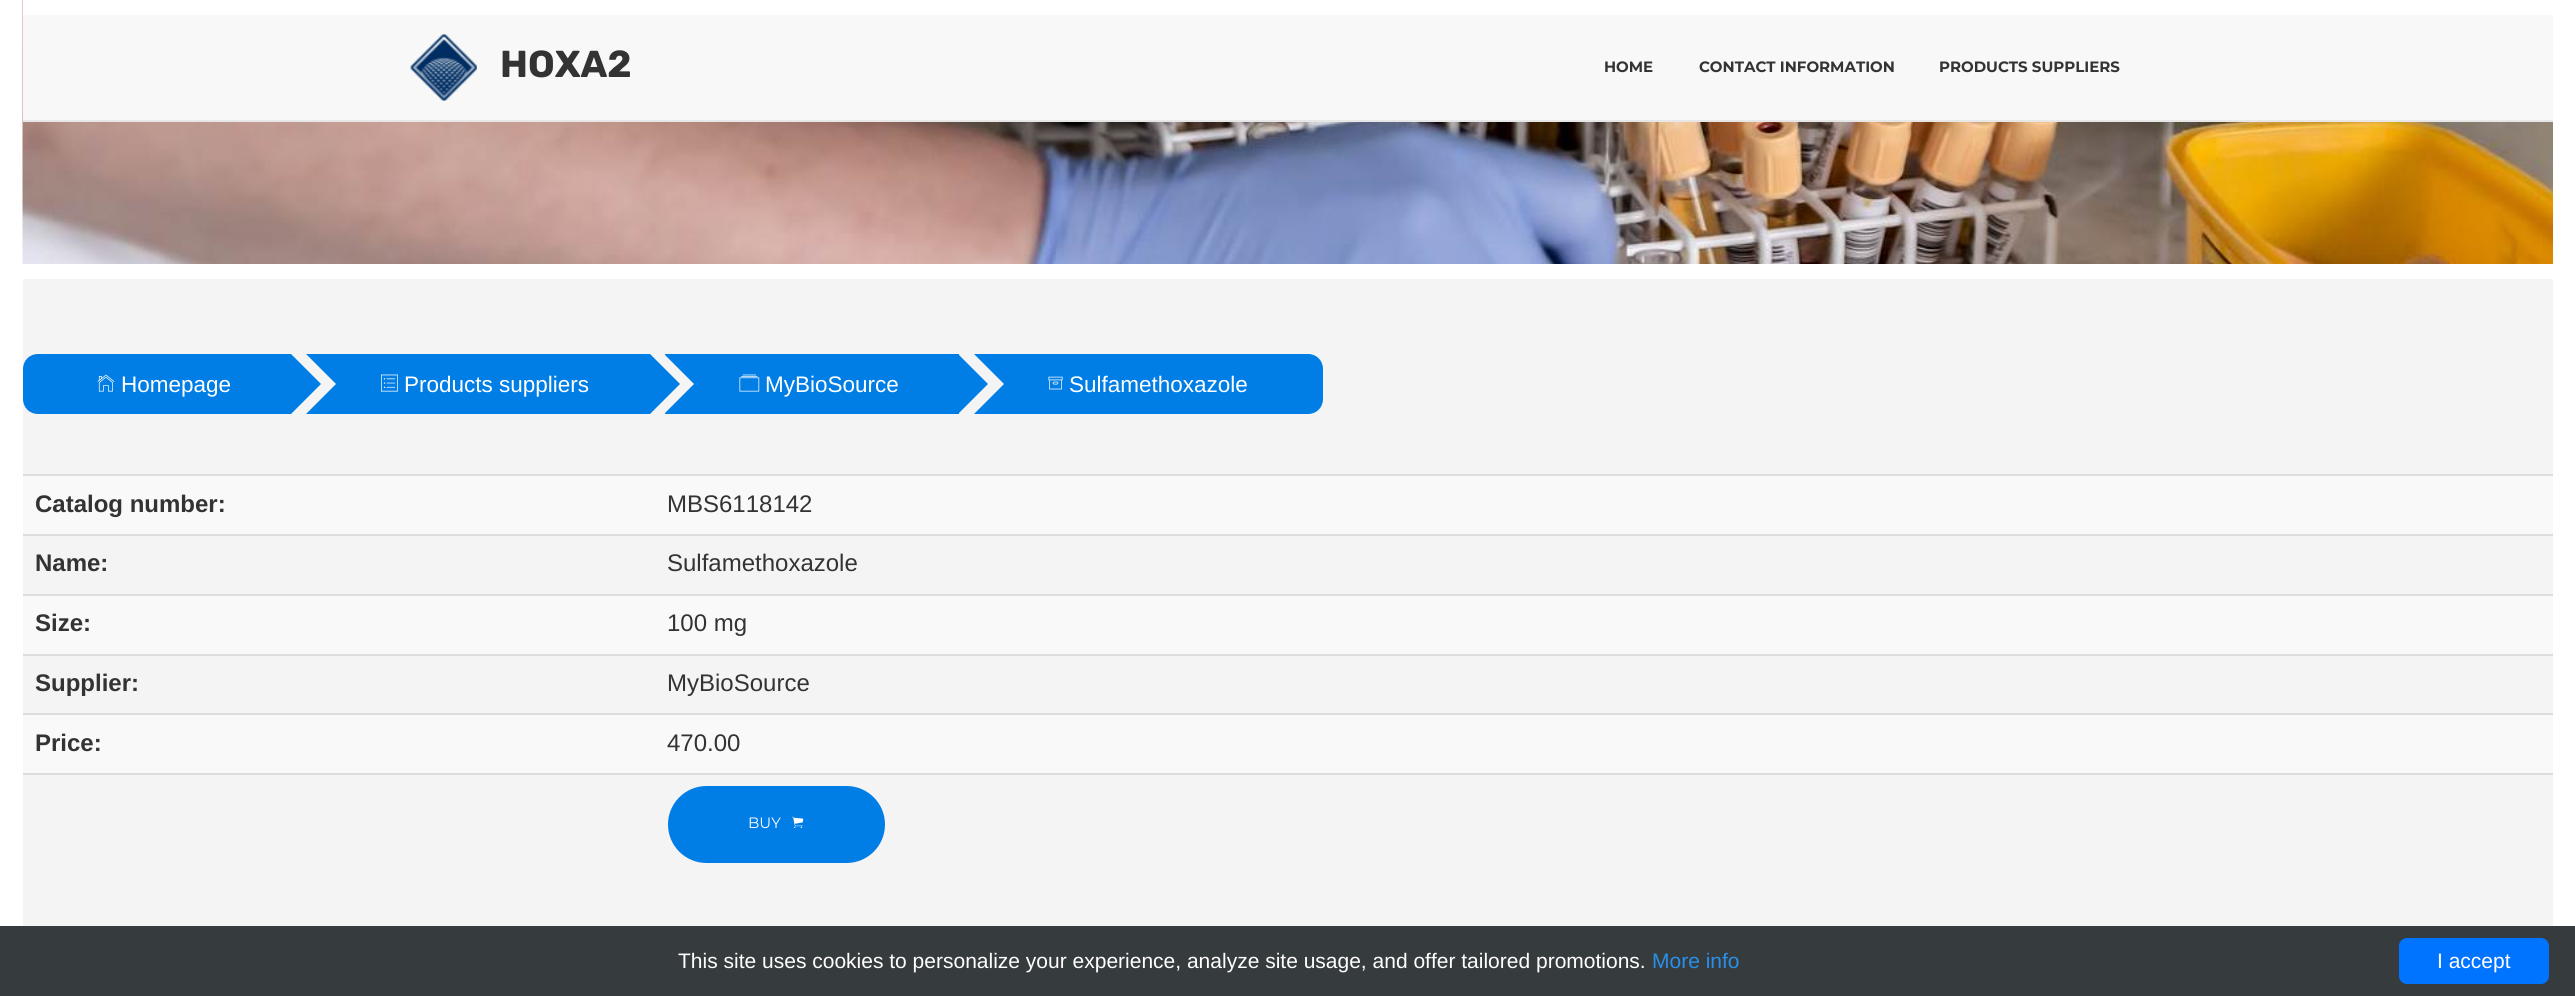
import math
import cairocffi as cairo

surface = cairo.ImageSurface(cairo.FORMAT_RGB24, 2575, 996)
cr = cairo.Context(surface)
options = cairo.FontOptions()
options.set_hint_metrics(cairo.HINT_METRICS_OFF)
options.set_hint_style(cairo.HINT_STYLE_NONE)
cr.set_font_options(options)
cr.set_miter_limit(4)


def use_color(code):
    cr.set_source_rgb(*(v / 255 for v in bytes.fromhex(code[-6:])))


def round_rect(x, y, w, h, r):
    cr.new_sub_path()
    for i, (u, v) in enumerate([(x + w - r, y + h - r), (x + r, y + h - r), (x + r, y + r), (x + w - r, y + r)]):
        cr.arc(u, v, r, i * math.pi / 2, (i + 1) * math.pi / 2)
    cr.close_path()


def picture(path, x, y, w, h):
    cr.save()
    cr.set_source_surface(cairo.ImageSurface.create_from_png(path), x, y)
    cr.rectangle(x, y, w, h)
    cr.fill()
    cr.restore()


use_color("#ffffff")
cr.paint()
picture("img1.png", 22, 0, 2531, 264)
use_color("#f8f8f8")
cr.rectangle(23, 15, 2530, 105)
cr.fill()
use_color("#ffffff")
cr.rectangle(23, 0, 2530, 15)
cr.fill()
use_color("#e7e7e7")
cr.rectangle(23, 120, 2530, 2)
cr.fill()
picture("img2.png", 410, 34, 67, 67)
cr.select_font_face("Rubik", cairo.FONT_SLANT_NORMAL, cairo.FONT_WEIGHT_BOLD)
cr.set_font_size(37.5)
use_color("#333333")
cr.move_to(500, 77)
cr.show_text("HOXA2")
cr.select_font_face("Montserrat", cairo.FONT_SLANT_NORMAL, cairo.FONT_WEIGHT_BOLD)
cr.set_font_size(15)
cr.move_to(1604, 72)
cr.show_text("HOME")
cr.move_to(1699, 72)
cr.show_text("CONTACT INFORMATION")
cr.move_to(1939, 72)
cr.show_text("PRODUCTS SUPPLIERS")
use_color("#f4f4f4")
cr.rectangle(23, 279, 2530, 647)
cr.fill()
use_color("#007ee5")
cr.new_path()
cr.move_to(38, 354)
cr.line_to(291, 354)
cr.line_to(291, 414)
cr.line_to(38, 414)
cr.curve_to(29.5, 414, 23, 407.5, 23, 399)
cr.line_to(23, 369)
cr.curve_to(23, 360.5, 29.5, 354, 38, 354)
cr.close_path()
cr.fill()
picture("img3.png", 97, 374, 18, 18)
cr.select_font_face("Liberation Sans")
cr.set_font_size(22.5)
use_color("#ffffff")
cr.move_to(121, 392)
cr.show_text("Homepage")
use_color("#007ee5")
cr.rectangle(306, 354, 344, 60)
cr.fill()
use_color("#f4f4f4")
cr.new_path()
cr.move_to(306, 414)
cr.line_to(306, 354)
cr.line_to(336, 384)
cr.close_path()
cr.fill()
use_color("#007ee5")
cr.new_path()
cr.move_to(291, 414)
cr.line_to(291, 354)
cr.line_to(321, 384)
cr.close_path()
cr.fill()
picture("img4.png", 381, 374, 17, 18)
use_color("#ffffff")
cr.move_to(404, 392)
cr.show_text("Products suppliers")
use_color("#007ee5")
cr.rectangle(665, 354, 294, 60)
cr.fill()
use_color("#f4f4f4")
cr.new_path()
cr.move_to(664, 414)
cr.line_to(664, 354)
cr.line_to(694, 384)
cr.close_path()
cr.fill()
use_color("#007ee5")
cr.new_path()
cr.move_to(650, 414)
cr.line_to(650, 354)
cr.line_to(680, 384)
cr.close_path()
cr.fill()
picture("img5.png", 739, 374, 21, 18)
use_color("#ffffff")
cr.move_to(765, 392)
cr.show_text("MyBioSource")
use_color("#007ee5")
cr.new_path()
cr.move_to(974, 354)
cr.line_to(1308, 354)
cr.curve_to(1316.5, 354, 1323, 360.5, 1323, 369)
cr.line_to(1323, 399)
cr.curve_to(1323, 407.5, 1316.5, 414, 1308, 414)
cr.line_to(974, 414)
cr.close_path()
cr.fill()
use_color("#f4f4f4")
cr.new_path()
cr.move_to(974, 414)
cr.line_to(974, 354)
cr.line_to(1004, 384)
cr.close_path()
cr.fill()
use_color("#007ee5")
cr.new_path()
cr.move_to(958, 414)
cr.line_to(958, 354)
cr.line_to(988, 384)
cr.close_path()
cr.fill()
picture("img6.png", 1048, 376, 15, 14)
use_color("#ffffff")
cr.move_to(1069, 392)
cr.show_text("Sulfamethoxazole")
use_color("#f9f9f9")
cr.rectangle(23, 476, 2530, 58)
cr.fill()
cr.select_font_face("Liberation Sans", cairo.FONT_SLANT_NORMAL, cairo.FONT_WEIGHT_BOLD)
cr.set_font_size(24)
use_color("#333333")
cr.move_to(35, 512)
cr.show_text("Catalog number:")
use_color("#dddddd")
cr.rectangle(23, 474, 2530, 2)
cr.fill()
cr.select_font_face("Liberation Sans")
use_color("#333333")
cr.move_to(667, 512)
cr.show_text("MBS6118142")
cr.select_font_face("Liberation Sans", cairo.FONT_SLANT_NORMAL, cairo.FONT_WEIGHT_BOLD)
cr.move_to(35, 571)
cr.show_text("Name:")
use_color("#dddddd")
cr.rectangle(23, 534, 2530, 2)
cr.fill()
cr.select_font_face("Liberation Sans")
use_color("#333333")
cr.move_to(667, 571)
cr.show_text("Sulfamethoxazole")
use_color("#f9f9f9")
cr.rectangle(23, 596, 2530, 58)
cr.fill()
cr.select_font_face("Liberation Sans", cairo.FONT_SLANT_NORMAL, cairo.FONT_WEIGHT_BOLD)
use_color("#333333")
cr.move_to(35, 631)
cr.show_text("Size:")
use_color("#dddddd")
cr.rectangle(23, 594, 2530, 2)
cr.fill()
cr.select_font_face("Liberation Sans")
use_color("#333333")
cr.move_to(667, 631)
cr.show_text("100 mg")
cr.select_font_face("Liberation Sans", cairo.FONT_SLANT_NORMAL, cairo.FONT_WEIGHT_BOLD)
cr.move_to(35, 691)
cr.show_text("Supplier:")
use_color("#dddddd")
cr.rectangle(23, 654, 2530, 2)
cr.fill()
cr.select_font_face("Liberation Sans")
use_color("#333333")
cr.move_to(667, 691)
cr.show_text("MyBioSource")
use_color("#f9f9f9")
cr.rectangle(23, 715, 2530, 58)
cr.fill()
cr.select_font_face("Liberation Sans", cairo.FONT_SLANT_NORMAL, cairo.FONT_WEIGHT_BOLD)
use_color("#333333")
cr.move_to(35, 751)
cr.show_text("Price:")
use_color("#dddddd")
cr.rectangle(23, 713, 2530, 2)
cr.fill()
cr.select_font_face("Liberation Sans")
use_color("#333333")
cr.move_to(667, 751)
cr.show_text("470.00")
use_color("#dddddd")
cr.rectangle(23, 773, 2530, 2)
cr.fill()
use_color("#007ee5")
round_rect(668, 786, 217, 77, 38.5)
cr.fill()
cr.select_font_face("Montserrat")
cr.set_font_size(15)
use_color("#ffffff")
cr.move_to(748, 828)
cr.show_text("BUY")
picture("img7.png", 792, 816, 12, 12)
use_color("#363b3e")
cr.rectangle(0, 926, 2575, 70)
cr.fill()
cr.select_font_face("Liberation Sans")
cr.set_font_size(21)
use_color("#ffffff")
cr.move_to(678, 968)
cr.show_text("This site uses cookies to personalize your experience, analyze site usage, and offer tailored promotions.")
use_color("#2990ea")
cr.move_to(1652, 968)
cr.show_text("More info")
use_color("#0073ff")
round_rect(2399, 938, 150, 46, 8)
cr.fill()
use_color("#ffffff")
cr.move_to(2437, 968)
cr.show_text("I accept")
surface.write_to_png("result.png")
